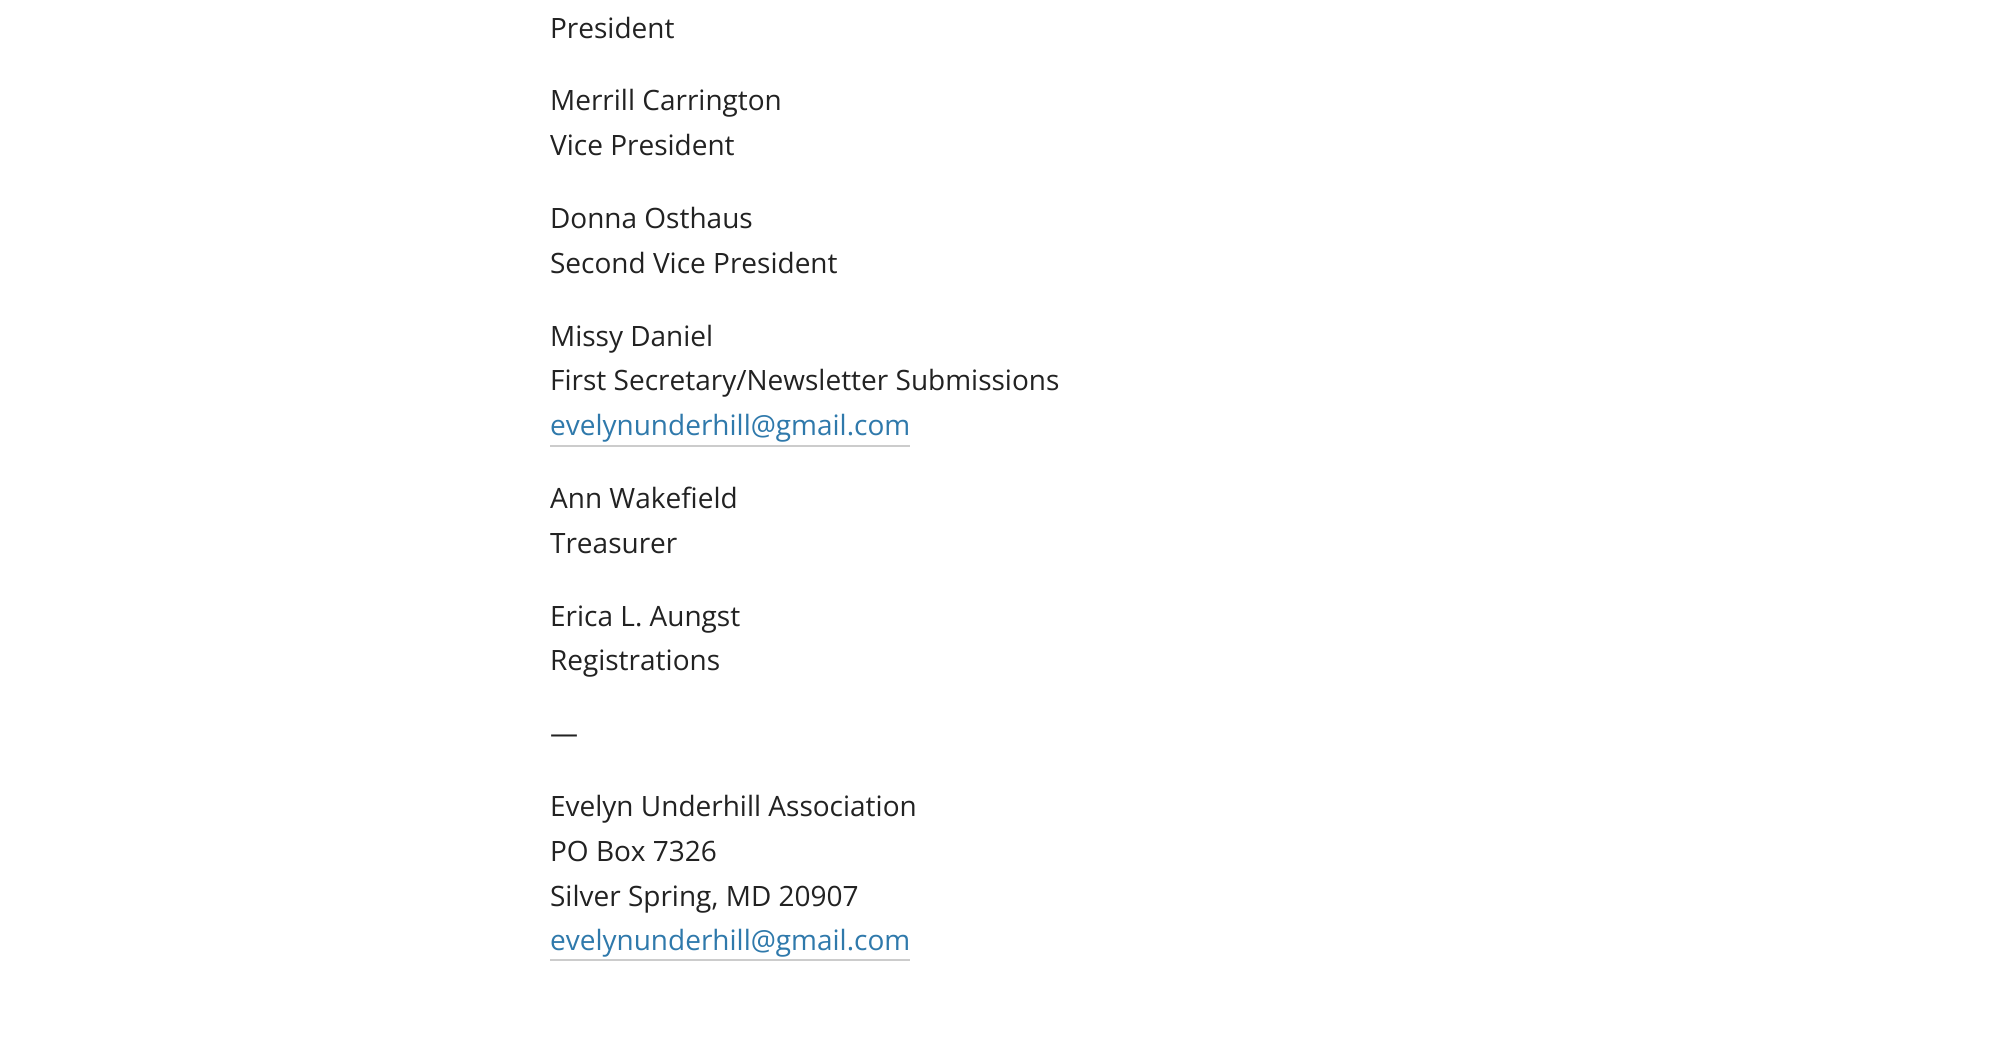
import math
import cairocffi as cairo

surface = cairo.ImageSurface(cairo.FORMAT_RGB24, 2009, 1042)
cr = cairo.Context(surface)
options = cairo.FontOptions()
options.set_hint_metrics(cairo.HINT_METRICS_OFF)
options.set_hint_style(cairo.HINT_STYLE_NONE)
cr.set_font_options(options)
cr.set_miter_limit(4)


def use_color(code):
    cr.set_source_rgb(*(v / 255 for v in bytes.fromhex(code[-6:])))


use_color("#ffffff")
cr.paint()
cr.select_font_face("Open Sans")
cr.set_font_size(28)
use_color("#222222")
cr.move_to(550, 38)
cr.show_text("President")
cr.move_to(550, 110)
cr.show_text("Merrill Carrington")
cr.move_to(550, 155)
cr.show_text("Vice President")
cr.move_to(550, 228)
cr.show_text("Donna Osthaus")
cr.move_to(550, 273)
cr.show_text("Second Vice President")
cr.move_to(550, 346)
cr.show_text("Missy Daniel")
cr.move_to(550, 390)
cr.show_text("First Secretary/Newsletter Submissions")
use_color("#2f79ab")
cr.move_to(550, 435)
cr.show_text("evelynunderhill@gmail.com")
use_color("#cccccc")
cr.rectangle(550, 445, 360, 2)
cr.fill()
use_color("#222222")
cr.move_to(550, 508)
cr.show_text("Ann Wakefield")
cr.move_to(550, 553)
cr.show_text("Treasurer")
cr.move_to(550, 626)
cr.show_text("Erica L. Aungst")
cr.move_to(550, 670)
cr.show_text("Registrations")
cr.move_to(550, 743)
cr.show_text("—")
cr.move_to(550, 816)
cr.show_text("Evelyn Underhill Association")
cr.move_to(550, 861)
cr.show_text("PO Box 7326")
cr.move_to(550, 906)
cr.show_text("Silver Spring, MD 20907")
use_color("#2f79ab")
cr.move_to(550, 950)
cr.show_text("evelynunderhill@gmail.com")
use_color("#cccccc")
cr.rectangle(550, 959, 360, 2)
cr.fill()
surface.write_to_png("result.png")
